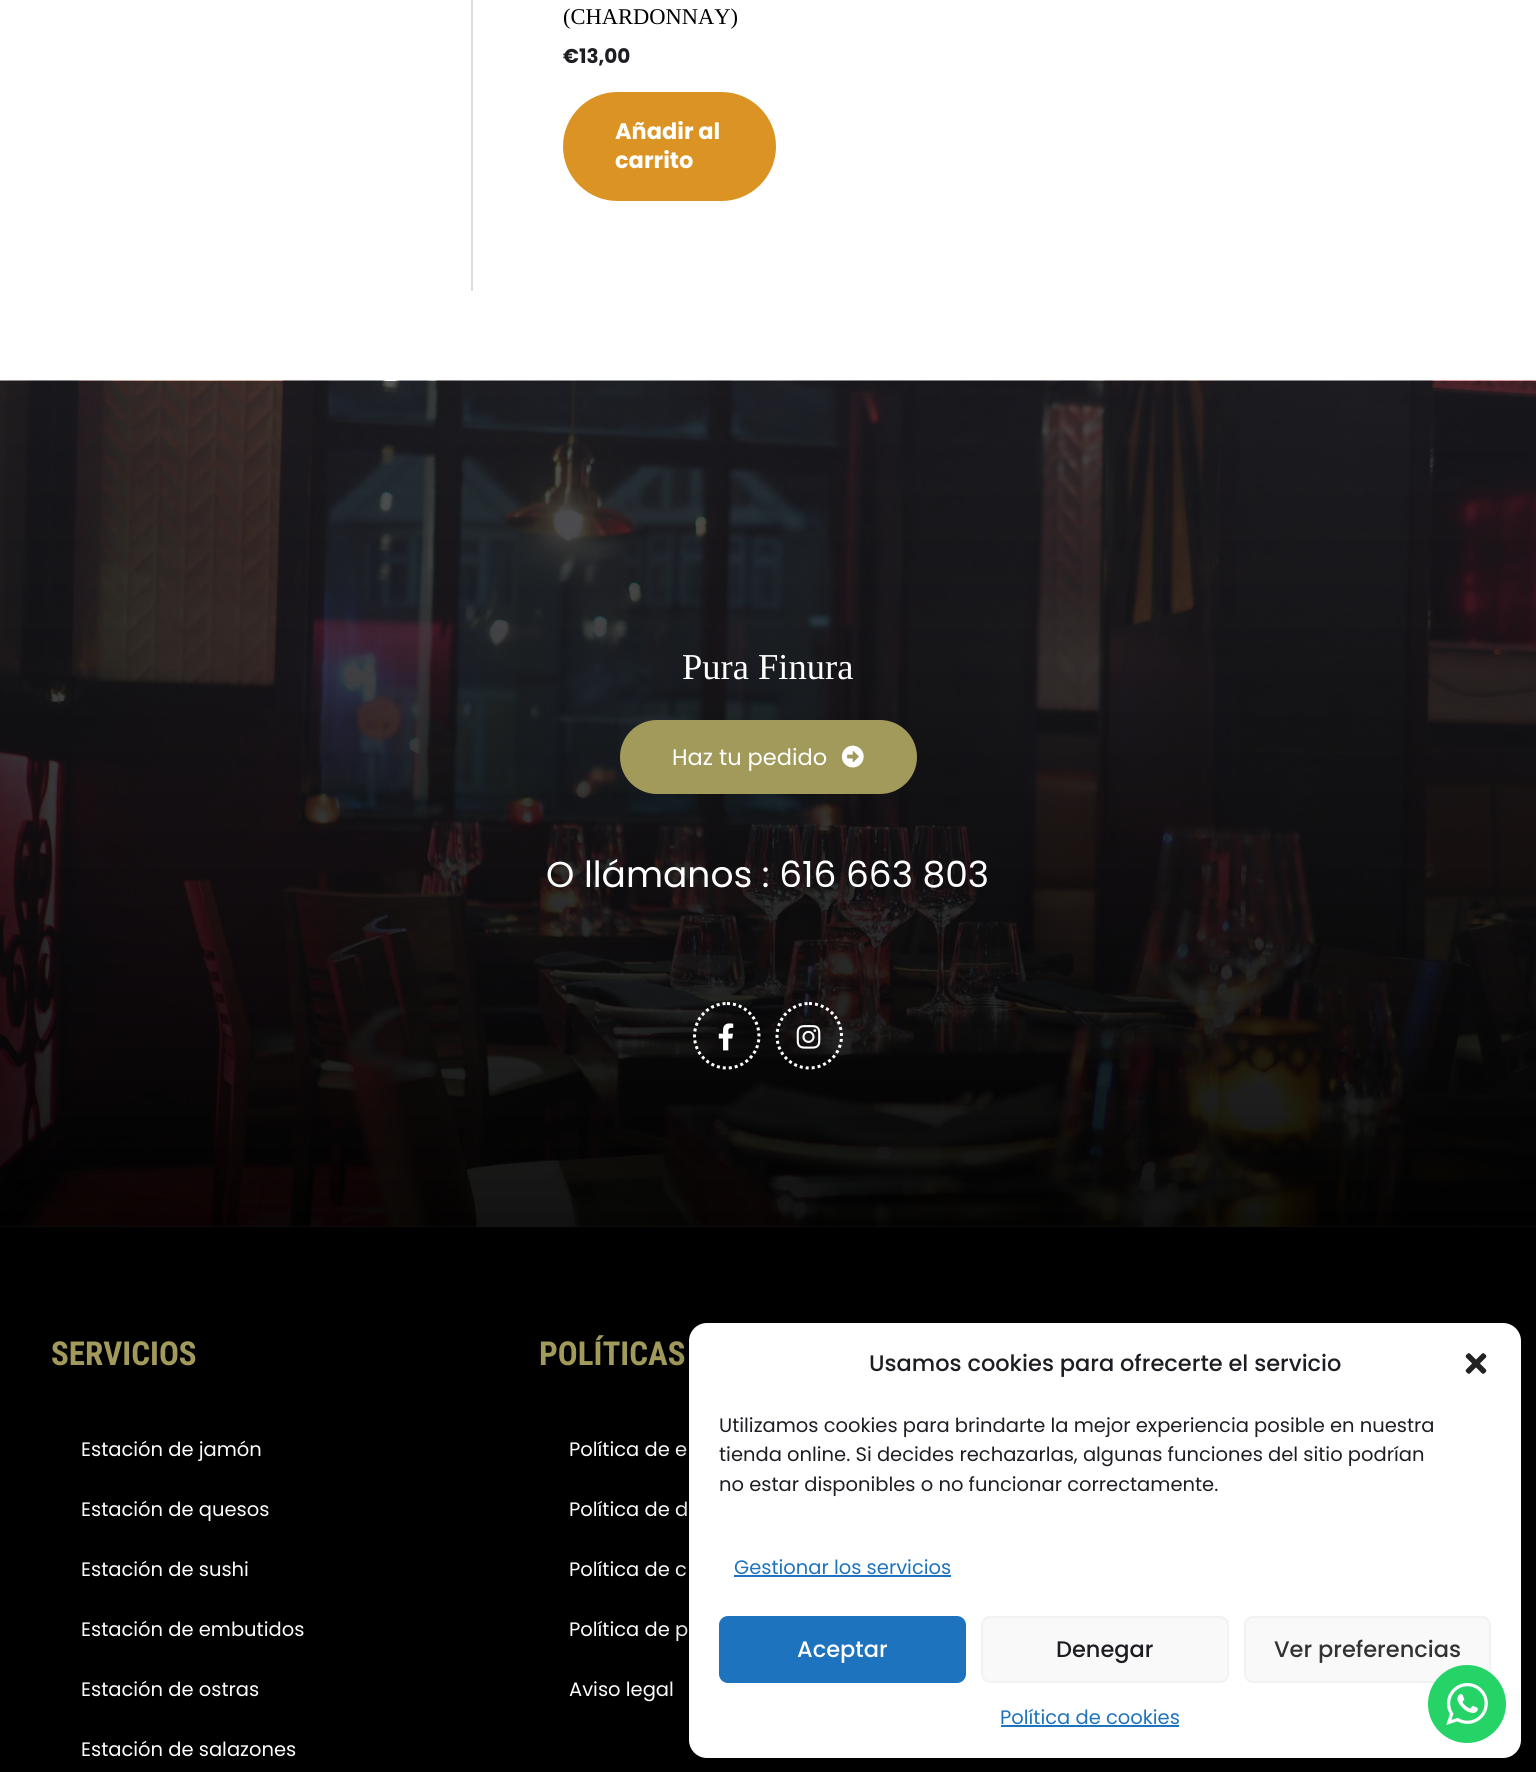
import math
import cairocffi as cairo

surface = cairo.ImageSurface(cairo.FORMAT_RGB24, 1536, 1772)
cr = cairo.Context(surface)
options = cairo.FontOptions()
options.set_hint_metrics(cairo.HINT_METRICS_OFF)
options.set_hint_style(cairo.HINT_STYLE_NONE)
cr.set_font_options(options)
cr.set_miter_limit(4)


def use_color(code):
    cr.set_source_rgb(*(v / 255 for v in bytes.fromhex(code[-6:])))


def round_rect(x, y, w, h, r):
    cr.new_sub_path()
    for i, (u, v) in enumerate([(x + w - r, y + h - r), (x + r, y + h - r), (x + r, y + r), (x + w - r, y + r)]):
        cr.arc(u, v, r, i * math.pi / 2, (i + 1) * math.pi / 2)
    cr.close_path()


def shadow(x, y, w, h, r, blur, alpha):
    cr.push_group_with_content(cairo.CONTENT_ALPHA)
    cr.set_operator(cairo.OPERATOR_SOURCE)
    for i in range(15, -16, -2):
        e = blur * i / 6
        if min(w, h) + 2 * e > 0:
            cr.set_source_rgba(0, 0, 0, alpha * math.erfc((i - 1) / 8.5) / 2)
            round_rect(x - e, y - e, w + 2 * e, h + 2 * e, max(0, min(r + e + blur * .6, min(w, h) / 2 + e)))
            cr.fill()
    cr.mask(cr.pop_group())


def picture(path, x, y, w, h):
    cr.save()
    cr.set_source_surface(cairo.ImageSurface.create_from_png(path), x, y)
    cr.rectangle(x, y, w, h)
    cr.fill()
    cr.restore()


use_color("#ffffff")
cr.paint()
use_color("#dddddd")
cr.rectangle(471, 0, 2, 291)
cr.fill()
cr.select_font_face("Liberation Serif")
cr.set_font_size(22.5)
use_color("#000000")
cr.move_to(563, 24)
cr.show_text("(CHARDONNAY)")
cr.select_font_face("Poppins", cairo.FONT_SLANT_NORMAL, cairo.FONT_WEIGHT_BOLD)
cr.set_font_size(20)
use_color("#1d1d23")
cr.move_to(563, 63)
cr.show_text("€13,00")
use_color("#db9423")
round_rect(563, 92, 213, 109, 54.5)
cr.fill()
cr.set_font_size(22.5)
use_color("#ffffff")
cr.move_to(615, 139)
cr.show_text("Añadir al")
cr.move_to(615, 168)
cr.show_text("carrito")
picture("img1.png", 0, 380, 1536, 847)
gradient = cairo.LinearGradient(768, 381, 768, 1227)
gradient.add_color_stop_rgba(0, 0.114, 0.114, 0.137, 0.75)
gradient.add_color_stop_rgba(1, 0, 0, 0, 0.93)
cr.set_source(gradient)
cr.rectangle(0, 381, 1536, 846)
cr.fill()
cr.select_font_face("Liberation Serif")
cr.set_font_size(36.5)
use_color("#ffffff")
cr.move_to(682, 679)
cr.show_text("Pura Finura")
use_color("#a29a5b")
round_rect(620, 720, 297, 74, 37)
cr.fill()
cr.select_font_face("Poppins")
cr.set_font_size(22.5)
use_color("#ffffff")
cr.move_to(672, 765)
cr.show_text("Haz tu pedido")
picture("img2.png", 841, 745, 23, 23)
cr.set_font_size(36)
cr.move_to(546, 887)
cr.show_text("O llámanos : 616 663 803")
cr.new_path()
cr.move_to(727, 1003.5)
cr.curve_to(744.5, 1003.5, 759, 1018, 759, 1036)
cr.curve_to(759, 1053.5, 744.5, 1068, 727, 1068)
cr.curve_to(709, 1068, 694.5, 1053.5, 694.5, 1036)
cr.curve_to(694.5, 1018, 709, 1003.5, 727, 1003.5)
cr.close_path()
cr.set_line_width(3)
cr.set_dash([3, 3])
cr.stroke()
picture("img3.png", 718, 1023, 16, 28)
cr.new_path()
cr.move_to(809, 1003.5)
cr.curve_to(827, 1003.5, 841.5, 1018, 841.5, 1036)
cr.curve_to(841.5, 1053.5, 827, 1068, 809, 1068)
cr.curve_to(791.5, 1068, 777, 1053.5, 777, 1036)
cr.curve_to(777, 1018, 791.5, 1003.5, 809, 1003.5)
cr.close_path()
cr.stroke()
picture("img4.png", 796, 1025, 25, 24)
use_color("#000000")
cr.rectangle(0, 1227, 1536, 545)
cr.fill()
cr.select_font_face("Roboto Condensed", cairo.FONT_SLANT_NORMAL, cairo.FONT_WEIGHT_BOLD)
cr.set_font_size(33)
use_color("#a29a5b")
cr.move_to(51, 1365)
cr.show_text("SERVICIOS")
cr.select_font_face("Poppins")
cr.set_font_size(19.5)
use_color("#ffffff")
cr.move_to(81, 1456)
cr.show_text("Estación de jamón")
cr.move_to(81, 1516)
cr.show_text("Estación de quesos")
cr.move_to(81, 1576)
cr.show_text("Estación de sushi")
cr.move_to(81, 1636)
cr.show_text("Estación de embutidos")
cr.move_to(81, 1696)
cr.show_text("Estación de ostras")
cr.move_to(81, 1756)
cr.show_text("Estación de salazones")
cr.select_font_face("Roboto Condensed", cairo.FONT_SLANT_NORMAL, cairo.FONT_WEIGHT_BOLD)
cr.set_font_size(33)
use_color("#a29a5b")
cr.move_to(539, 1365)
cr.show_text("POLÍTICAS")
cr.select_font_face("Poppins")
cr.set_font_size(19.5)
use_color("#ffffff")
cr.move_to(569, 1456)
cr.show_text("Política de e")
cr.move_to(569, 1516)
cr.show_text("Política de d")
cr.move_to(569, 1576)
cr.show_text("Política de c")
cr.move_to(569, 1636)
cr.show_text("Política de p")
cr.move_to(569, 1696)
cr.show_text("Aviso legal")
use_color("#000000")
shadow(689, 1332, 832, 435, 18, 4.5, 0.23)
shadow(689, 1338, 832, 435, 18, 15, 0.19)
use_color("#ffffff")
round_rect(689, 1323, 832, 435, 18)
cr.fill()
cr.select_font_face("Poppins Medium")
cr.set_font_size(22.5)
use_color("#1d1d23")
cr.move_to(869, 1371)
cr.show_text("Usamos cookies para ofrecerte el servicio")
picture("img5.png", 1465, 1353, 22, 21)
cr.select_font_face("Poppins")
cr.set_font_size(19.5)
cr.move_to(719, 1432)
cr.show_text("Utilizamos cookies para brindarte la mejor experiencia posible en nuestra")
cr.move_to(719, 1461)
cr.show_text("tienda online. Si decides rechazarlas, algunas funciones del sitio podrían")
cr.move_to(719, 1491)
cr.show_text("no estar disponibles o no funcionar correctamente.")
use_color("#1e73be")
cr.move_to(734, 1574)
cr.show_text("Gestionar los servicios")
cr.rectangle(734, 1575, 217, 2)
cr.fill()
round_rect(720, 1617, 245, 65, 8)
cr.fill_preserve()
cr.set_line_width(2)
cr.set_dash([])
cr.stroke()
cr.select_font_face("Poppins Medium")
cr.set_font_size(22.5)
use_color("#ffffff")
cr.move_to(797, 1657)
cr.show_text("Aceptar")
use_color("#f9f9f9")
round_rect(982, 1617, 246, 65, 8)
cr.fill_preserve()
use_color("#f2f2f2")
cr.stroke()
use_color("#1d1d23")
cr.move_to(1056, 1657)
cr.show_text("Denegar")
use_color("#f9f9f9")
round_rect(1245, 1617, 245, 65, 8)
cr.fill_preserve()
use_color("#f2f2f2")
cr.stroke()
use_color("#333333")
cr.move_to(1274, 1657)
cr.show_text("Ver preferencias")
cr.select_font_face("Poppins")
cr.set_font_size(19.5)
use_color("#1e73be")
cr.move_to(1000, 1724)
cr.show_text("Política de cookies")
cr.rectangle(1001, 1725, 178, 2)
cr.fill()
use_color("#25d366")
cr.arc(1467, 1704, 39, 0, 2 * math.pi)
cr.fill()
picture("img6.png", 1446, 1683, 42, 42)
surface.write_to_png("result.png")
